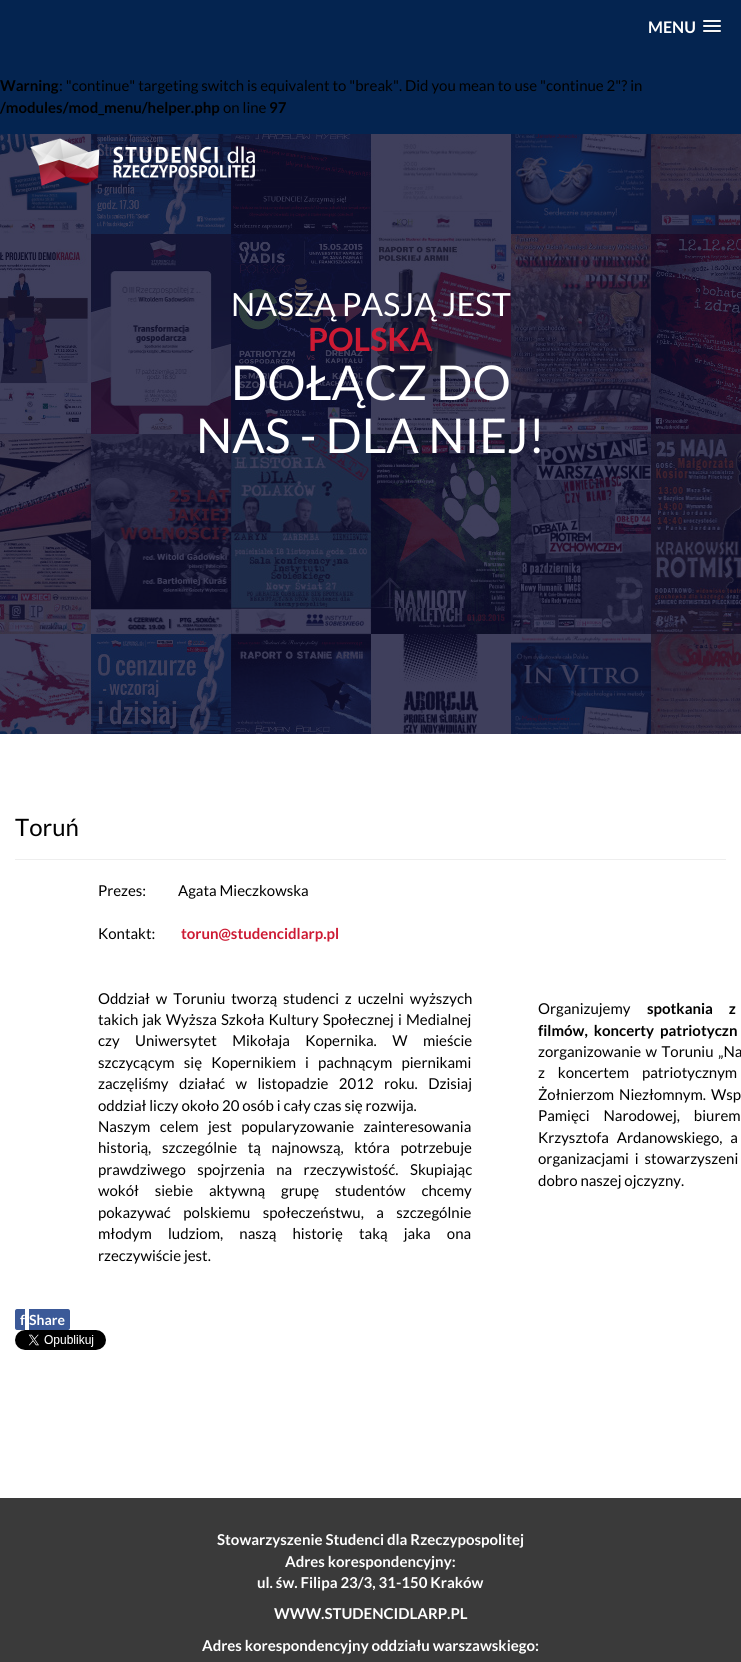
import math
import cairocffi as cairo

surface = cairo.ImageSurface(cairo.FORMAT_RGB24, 741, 1662)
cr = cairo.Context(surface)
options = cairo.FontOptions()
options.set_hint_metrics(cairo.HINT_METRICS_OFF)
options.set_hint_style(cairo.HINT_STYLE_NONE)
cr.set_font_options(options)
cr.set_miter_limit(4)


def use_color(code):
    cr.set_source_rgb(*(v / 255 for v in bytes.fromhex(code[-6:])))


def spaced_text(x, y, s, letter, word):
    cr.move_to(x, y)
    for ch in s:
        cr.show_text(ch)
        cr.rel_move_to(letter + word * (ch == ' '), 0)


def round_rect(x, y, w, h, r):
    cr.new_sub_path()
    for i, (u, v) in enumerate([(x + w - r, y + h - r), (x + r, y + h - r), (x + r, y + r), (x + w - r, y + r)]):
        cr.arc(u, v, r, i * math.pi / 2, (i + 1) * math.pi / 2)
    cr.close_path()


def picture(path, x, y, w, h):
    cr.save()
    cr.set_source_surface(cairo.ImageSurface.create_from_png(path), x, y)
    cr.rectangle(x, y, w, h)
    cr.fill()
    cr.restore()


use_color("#ffffff")
cr.paint()
use_color("#042450")
cr.rectangle(0, 0, 741, 134)
cr.fill()
cr.select_font_face("Lato", cairo.FONT_SLANT_NORMAL, cairo.FONT_WEIGHT_BOLD)
cr.set_font_size(16)
use_color("#ffffff")
cr.move_to(648, 33)
cr.show_text("MENU")
use_color("#031b3c")
cr.new_path()
cr.move_to(703, 21.5)
cr.curve_to(702, 23.5, 706.5, 23, 706.5, 23)
cr.line_to(717.5, 23)
cr.curve_to(717.5, 23, 722, 23.5, 721, 21.5)
cr.curve_to(720, 22.5, 713.5, 22, 712, 22)
cr.curve_to(710.5, 22, 704, 22.5, 703, 21.5)
cr.close_path()
cr.fill()
use_color("#f5f5f5")
round_rect(703, 20, 18, 2, 1)
cr.fill()
use_color("#031b3c")
cr.new_path()
cr.move_to(703, 26.5)
cr.curve_to(702, 28.5, 706.5, 28, 706.5, 28)
cr.line_to(717.5, 28)
cr.curve_to(717.5, 28, 722, 28.5, 721, 26.5)
cr.curve_to(720, 27.5, 713.5, 27, 712, 27)
cr.curve_to(710.5, 27, 704, 27.5, 703, 26.5)
cr.close_path()
cr.fill()
use_color("#f5f5f5")
round_rect(703, 25, 18, 2, 1)
cr.fill()
use_color("#031b3c")
cr.new_path()
cr.move_to(703, 31.5)
cr.curve_to(702, 33.5, 706.5, 33, 706.5, 33)
cr.line_to(717.5, 33)
cr.curve_to(717.5, 33, 722, 33.5, 721, 31.5)
cr.curve_to(720, 32.5, 713.5, 32, 712, 32)
cr.curve_to(710.5, 32, 704, 32.5, 703, 31.5)
cr.close_path()
cr.fill()
use_color("#f5f5f5")
round_rect(703, 30, 18, 2, 1)
cr.fill()
cr.set_font_size(15)
use_color("#000000")
cr.move_to(0, 91)
cr.show_text("Warning")
cr.select_font_face("Lato")
cr.move_to(59, 91)
cr.show_text(": \"continue\" targeting switch is equivalent to \"break\". Did you mean to use \"continue 2\"? in")
cr.select_font_face("Lato", cairo.FONT_SLANT_NORMAL, cairo.FONT_WEIGHT_BOLD)
cr.move_to(0, 113)
cr.show_text("/modules/mod_menu/helper.php")
cr.select_font_face("Lato")
cr.move_to(223, 113)
cr.show_text("on line")
cr.select_font_face("Lato", cairo.FONT_SLANT_NORMAL, cairo.FONT_WEIGHT_BOLD)
cr.move_to(269, 113)
cr.show_text("97")
picture("img2.png", 0, 134, 741, 600)
picture("img1.png", 30, 138, 225, 48)
cr.select_font_face("Lato")
cr.set_font_size(32)
use_color("#ffffff")
cr.move_to(231, 316)
cr.show_text("NASZĄ PASJĄ JEST")
cr.select_font_face("Lato", cairo.FONT_SLANT_NORMAL, cairo.FONT_WEIGHT_BOLD)
use_color("#cd1a33")
cr.move_to(308, 351)
cr.show_text("POLSKA")
cr.select_font_face("Lato")
cr.set_font_size(48)
use_color("#ffffff")
cr.move_to(231, 400)
cr.show_text("DOŁĄCZ DO")
cr.move_to(196, 453)
cr.show_text("NAS - DLA NIEJ!")
use_color("#eeeeee")
cr.rectangle(15, 859, 711, 1)
cr.fill()
cr.set_font_size(24)
use_color("#000000")
cr.move_to(15, 836)
cr.show_text("Toruń")
cr.set_font_size(15)
cr.move_to(98, 896)
cr.show_text("Prezes:           Agata Mieczkowska")
cr.move_to(98, 939)
cr.show_text("Kontakt:")
cr.select_font_face("Lato", cairo.FONT_SLANT_NORMAL, cairo.FONT_WEIGHT_BOLD)
use_color("#cd1a33")
cr.move_to(181, 939)
cr.show_text("torun@studencidlarp.pl")
cr.select_font_face("Lato")
use_color("#000000")
spaced_text(98, 1004, "Oddział w Toruniu tworzą studenci z uczelni wyższych", 0, 3)
spaced_text(98, 1025, "takich jak Wyższa Szkoła Kultury Społecznej i Medialnej", 0, 1.25)
spaced_text(98, 1046, "czy Uniwersytet Mikołaja Kopernika. W mieście", 0, 12.5)
spaced_text(98, 1068, "szczycącym się Kopernikiem i pachnącym piernikami", 0, 6.25)
spaced_text(98, 1089, "zaczęliśmy działać w listopadzie 2012 roku. Dzisiaj", 0, 7.5)
cr.move_to(98, 1111)
cr.show_text("oddział liczy około 20 osób i cały czas się rozwija.")
spaced_text(98, 1132, "Naszym celem jest popularyzowanie zainteresowania", 0, 6.5)
spaced_text(98, 1153, "historią, szczególnie tą najnowszą, która potrzebuje", 0, 7.75)
spaced_text(98, 1175, "prawdziwego spojrzenia na rzeczywistość. Skupiając", 0, 8.5)
spaced_text(98, 1196, "wokół siebie aktywną grupę studentów chcemy", 0, 13)
spaced_text(98, 1218, "pokazywać polskiemu społeczeństwu, a szczególnie", 0, 9.5)
spaced_text(98, 1239, "młodym ludziom, naszą historię taką jaka ona", 0, 13.25)
cr.move_to(98, 1261)
cr.show_text("rzeczywiście jest.")
cr.move_to(538, 1014)
cr.show_text("Organizujemy")
cr.select_font_face("Lato", cairo.FONT_SLANT_NORMAL, cairo.FONT_WEIGHT_BOLD)
spaced_text(647, 1014, "spotkania z", 0, 13)
spaced_text(538, 1036, "filmów, koncerty patriotyczn", 0, 3)
cr.select_font_face("Lato")
spaced_text(538, 1057, "zorganizowanie w Toruniu „Na", 0, 1.5)
spaced_text(538, 1078, "z koncertem patriotycznym", 0, 10)
spaced_text(538, 1100, "Żołnierzom Niezłomnym. Wsp", 0, 2)
spaced_text(538, 1121, "Pamięci Narodowej, biurem", 0, 11)
spaced_text(538, 1143, "Krzysztofa Ardanowskiego, a", 0, 5)
spaced_text(538, 1164, "organizacjami i stowarzyszeni", 0, 3)
cr.move_to(538, 1186)
cr.show_text("dobro naszej ojczyzny.")
use_color("#3b5998")
cr.new_path()
cr.move_to(17, 1309)
cr.line_to(25, 1309)
cr.line_to(25, 1330)
cr.line_to(17, 1330)
cr.curve_to(16, 1330, 15, 1329, 15, 1328)
cr.line_to(15, 1311)
cr.curve_to(15, 1310, 16, 1309, 17, 1309)
cr.close_path()
cr.fill()
cr.select_font_face("Lato", cairo.FONT_SLANT_NORMAL, cairo.FONT_WEIGHT_BOLD)
cr.set_font_size(14)
use_color("#ffffff")
cr.move_to(20, 1325)
cr.show_text("f")
use_color("#3b5998")
cr.new_path()
cr.move_to(29, 1309)
cr.line_to(68, 1309)
cr.curve_to(69, 1309, 70, 1310, 70, 1311)
cr.line_to(70, 1328)
cr.curve_to(70, 1329, 69, 1330, 68, 1330)
cr.line_to(29, 1330)
cr.close_path()
cr.fill()
use_color("#ffffff")
cr.move_to(29, 1325)
cr.show_text("Share")
picture("img3.png", 15, 1330, 91, 20)
use_color("#3a3a3a")
cr.rectangle(0, 1498, 741, 164)
cr.fill()
cr.set_font_size(15)
use_color("#ffffff")
cr.move_to(217, 1545)
cr.show_text("Stowarzyszenie Studenci dla Rzeczypospolitej")
cr.move_to(285, 1567)
cr.show_text("Adres korespondencyjny:")
cr.move_to(257, 1588)
cr.show_text("ul. św. Filipa 23/3, 31-150 Kraków")
cr.move_to(274, 1619)
cr.show_text("WWW.STUDENCIDLARP.PL")
cr.move_to(202, 1651)
cr.show_text("Adres korespondencyjny oddziału warszawskiego:")
surface.write_to_png("result.png")
